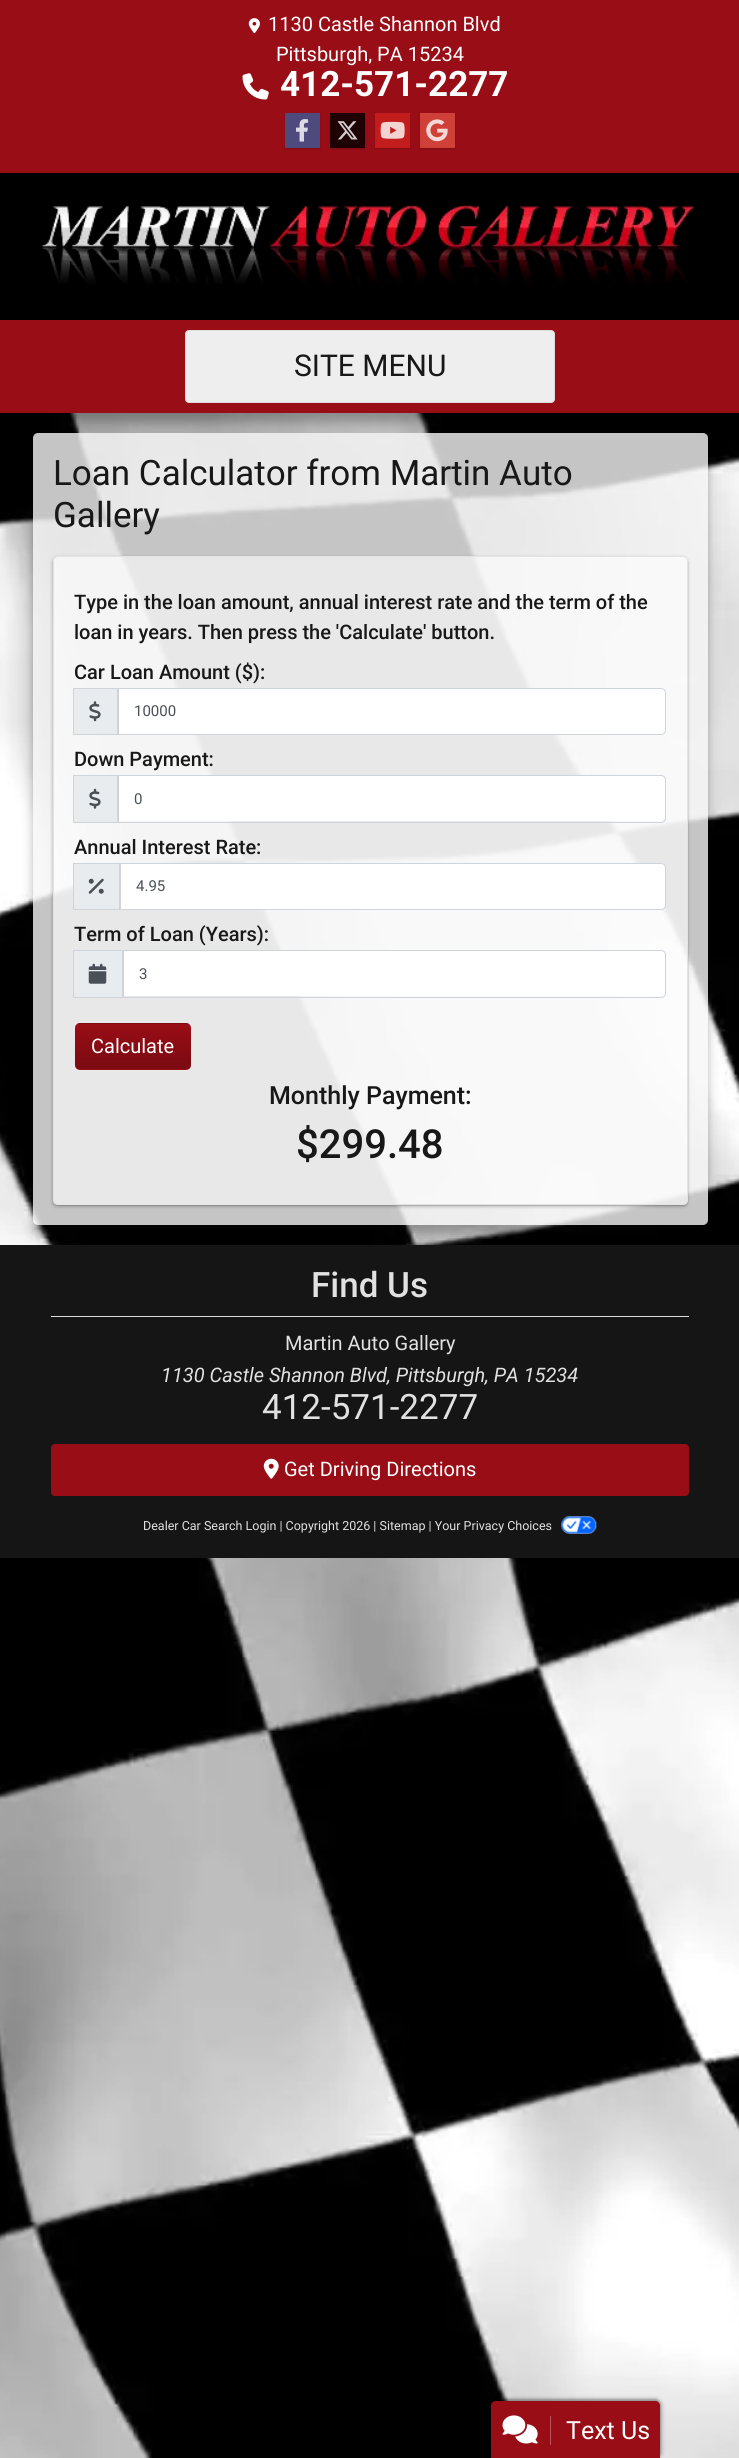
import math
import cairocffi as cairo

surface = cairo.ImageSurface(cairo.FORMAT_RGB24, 739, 2458)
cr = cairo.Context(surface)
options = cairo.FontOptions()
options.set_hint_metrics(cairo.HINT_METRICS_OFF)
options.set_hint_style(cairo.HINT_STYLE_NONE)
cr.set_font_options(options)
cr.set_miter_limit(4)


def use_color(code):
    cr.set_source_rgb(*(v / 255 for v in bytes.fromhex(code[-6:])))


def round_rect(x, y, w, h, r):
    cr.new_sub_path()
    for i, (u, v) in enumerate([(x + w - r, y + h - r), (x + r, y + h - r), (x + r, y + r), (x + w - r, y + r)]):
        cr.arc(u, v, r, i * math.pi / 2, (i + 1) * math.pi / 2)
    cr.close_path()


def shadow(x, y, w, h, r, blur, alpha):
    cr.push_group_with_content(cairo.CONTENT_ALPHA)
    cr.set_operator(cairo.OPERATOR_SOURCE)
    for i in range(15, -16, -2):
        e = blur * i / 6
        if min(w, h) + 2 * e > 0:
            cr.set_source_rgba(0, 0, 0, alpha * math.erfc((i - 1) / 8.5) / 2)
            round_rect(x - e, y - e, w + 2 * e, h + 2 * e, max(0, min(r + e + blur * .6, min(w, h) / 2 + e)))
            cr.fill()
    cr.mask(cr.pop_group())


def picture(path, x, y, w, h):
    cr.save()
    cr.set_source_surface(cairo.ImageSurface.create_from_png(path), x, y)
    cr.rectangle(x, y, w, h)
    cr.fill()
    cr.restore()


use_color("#ffffff")
cr.paint()
picture("img1.png", 0, 413, 739, 2045)
use_color("#000000")
shadow(0, 6, 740, 413, 0, 3, 0.1)
shadow(0, 13, 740, 412, 0, 6, 0.2)
use_color("#000000")
cr.rectangle(0, 173, 739, 147)
cr.fill()
use_color("#990d16")
cr.rectangle(0, 0, 739, 173)
cr.fill()
picture("img2.png", 248, 18, 12, 16)
cr.select_font_face("Roboto")
cr.set_font_size(20)
use_color("#ffffff")
cr.move_to(268, 31)
cr.show_text("1130 Castle Shannon Blvd")
cr.move_to(276, 61)
cr.show_text("Pittsburgh, PA 15234")
picture("img3.png", 242, 73, 27, 27)
cr.select_font_face("Roboto", cairo.FONT_SLANT_NORMAL, cairo.FONT_WEIGHT_BOLD)
cr.set_font_size(35)
cr.move_to(280, 96)
cr.show_text("412-571-2277")
use_color("#1f0304")
shadow(285, 114, 35, 35, 0, 0.5, 0.2)
use_color("#4e4a7e")
cr.rectangle(285, 113, 35, 35)
cr.fill()
picture("img4.png", 296, 119, 13, 23)
use_color("#1f0304")
shadow(330, 114, 35, 35, 0, 0.5, 0.2)
use_color("#1f0304")
cr.rectangle(330, 113, 35, 35)
cr.fill()
picture("img5.png", 337, 121, 21, 19)
use_color("#1f0304")
shadow(375, 114, 35, 35, 0, 0.5, 0.2)
use_color("#c31c1d")
cr.rectangle(375, 113, 35, 35)
cr.fill()
picture("img6.png", 380, 121, 25, 18)
use_color("#1f0304")
shadow(420, 114, 35, 35, 0, 0.5, 0.2)
use_color("#cf4138")
cr.rectangle(420, 113, 35, 35)
cr.fill()
picture("img7.png", 426, 119, 22, 23)
picture("img8.png", 42, 204, 652, 80)
use_color("#990d16")
cr.rectangle(0, 320, 739, 93)
cr.fill()
use_color("#eeeeee")
round_rect(185.5, 330.5, 369, 72, 3.5)
cr.fill_preserve()
use_color("#dcdcdc")
cr.set_line_width(1)
cr.stroke()
cr.select_font_face("Roboto")
cr.set_font_size(30)
use_color("#181818")
cr.move_to(294, 376)
cr.show_text("SITE MENU")
cr.save()
cr.set_fill_rule(cairo.FILL_RULE_EVEN_ODD)
cr.new_path()
cr.move_to(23, 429)
cr.line_to(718, 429)
cr.line_to(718, 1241)
cr.line_to(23, 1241)
cr.close_path()
cr.move_to(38, 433)
cr.line_to(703, 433)
cr.curve_to(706, 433, 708, 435, 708, 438)
cr.line_to(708, 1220)
cr.curve_to(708, 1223, 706, 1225, 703, 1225)
cr.line_to(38, 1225)
cr.curve_to(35, 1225, 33, 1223, 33, 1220)
cr.line_to(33, 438)
cr.curve_to(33, 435, 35, 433, 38, 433)
cr.close_path()
cr.clip()
use_color("#000000")
shadow(33, 439, 675, 792, 5, 3, 0.1)
cr.restore()
cr.save()
cr.set_fill_rule(cairo.FILL_RULE_EVEN_ODD)
cr.new_path()
cr.move_to(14, 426)
cr.line_to(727, 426)
cr.line_to(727, 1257)
cr.line_to(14, 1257)
cr.close_path()
cr.move_to(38, 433)
cr.line_to(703, 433)
cr.curve_to(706, 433, 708, 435, 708, 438)
cr.line_to(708, 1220)
cr.curve_to(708, 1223, 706, 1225, 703, 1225)
cr.line_to(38, 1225)
cr.curve_to(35, 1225, 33, 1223, 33, 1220)
cr.line_to(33, 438)
cr.curve_to(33, 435, 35, 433, 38, 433)
cr.close_path()
cr.clip()
use_color("#000000")
shadow(33, 445, 675, 793, 5, 6, 0.2)
cr.restore()
cr.set_source_rgba(0.965, 0.965, 0.965, 0.8)
round_rect(33, 433, 675, 792, 5)
cr.fill()
cr.set_font_size(35)
use_color("#181818")
cr.move_to(53, 485)
cr.show_text("Loan Calculator from Martin Auto")
cr.move_to(53, 527)
cr.show_text("Gallery")
cr.save()
cr.set_fill_rule(cairo.FILL_RULE_EVEN_ODD)
cr.new_path()
cr.move_to(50, 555)
cr.line_to(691, 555)
cr.line_to(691, 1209)
cr.line_to(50, 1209)
cr.close_path()
cr.move_to(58, 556)
cr.line_to(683, 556)
cr.curve_to(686, 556, 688, 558, 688, 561)
cr.line_to(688, 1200)
cr.curve_to(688, 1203, 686, 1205, 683, 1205)
cr.line_to(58, 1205)
cr.curve_to(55, 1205, 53, 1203, 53, 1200)
cr.line_to(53, 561)
cr.curve_to(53, 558, 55, 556, 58, 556)
cr.close_path()
cr.clip()
use_color("#000000")
shadow(53, 558, 635, 648, 5, 0.5, 0.2)
cr.restore()
cr.save()
cr.set_fill_rule(cairo.FILL_RULE_EVEN_ODD)
cr.new_path()
cr.move_to(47, 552)
cr.line_to(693, 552)
cr.line_to(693, 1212)
cr.line_to(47, 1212)
cr.close_path()
cr.move_to(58, 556)
cr.line_to(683, 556)
cr.curve_to(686, 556, 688, 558, 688, 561)
cr.line_to(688, 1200)
cr.curve_to(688, 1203, 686, 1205, 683, 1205)
cr.line_to(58, 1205)
cr.curve_to(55, 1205, 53, 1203, 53, 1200)
cr.line_to(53, 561)
cr.curve_to(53, 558, 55, 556, 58, 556)
cr.close_path()
cr.clip()
use_color("#000000")
shadow(51, 556, 638, 652, 6, 1, 0.1)
cr.restore()
cr.set_source_rgba(1, 1, 1, 0.6)
round_rect(53.5, 556.5, 634, 648, 4.5)
cr.fill_preserve()
use_color("#e3e3e3")
cr.stroke()
cr.select_font_face("Roboto Medium")
cr.set_font_size(20)
use_color("#181818")
cr.move_to(74, 609)
cr.show_text("Type in the loan amount, annual interest rate and the term of the")
cr.move_to(74, 639)
cr.show_text("loan in years. Then press the 'Calculate' button.")
cr.move_to(74, 679)
cr.show_text("Car Loan Amount ($):")
use_color("#e9ecef")
cr.rectangle(73.5, 688.5, 44, 46)
cr.fill_preserve()
use_color("#ced4da")
cr.stroke()
picture("img9.png", 89, 701, 12, 21)
use_color("#ffffff")
cr.new_path()
cr.move_to(118.5, 688.5)
cr.line_to(661, 688.5)
cr.curve_to(663.5, 688.5, 665.5, 690.5, 665.5, 693)
cr.line_to(665.5, 730)
cr.curve_to(665.5, 732.5, 663.5, 734.5, 661, 734.5)
cr.line_to(118.5, 734.5)
cr.close_path()
cr.fill_preserve()
use_color("#ced4da")
cr.stroke()
cr.select_font_face("Roboto")
cr.set_font_size(15)
use_color("#495057")
cr.move_to(134, 716)
cr.show_text("10000")
cr.select_font_face("Roboto Medium")
cr.set_font_size(20)
use_color("#181818")
cr.move_to(74, 766)
cr.show_text("Down Payment:")
use_color("#e9ecef")
cr.rectangle(73.5, 775.5, 44, 47)
cr.fill_preserve()
use_color("#ced4da")
cr.stroke()
picture("img10.png", 89, 788, 12, 21)
use_color("#ffffff")
cr.new_path()
cr.move_to(119, 776)
cr.line_to(661, 776)
cr.curve_to(663, 776, 665, 778, 665, 780)
cr.line_to(665, 817)
cr.curve_to(665, 819, 663, 821, 661, 821)
cr.line_to(119, 821)
cr.close_path()
cr.fill()
cr.new_path()
cr.move_to(118.5, 775.5)
cr.line_to(661, 775.5)
cr.curve_to(663.5, 775.5, 665.5, 777.5, 665.5, 780)
cr.line_to(665.5, 818)
cr.curve_to(665.5, 820.5, 663.5, 822.5, 661, 822.5)
cr.line_to(118.5, 822.5)
cr.close_path()
use_color("#ced4da")
cr.stroke()
cr.select_font_face("Roboto")
cr.set_font_size(15)
use_color("#495057")
cr.move_to(134, 804)
cr.show_text("0")
cr.select_font_face("Roboto Medium")
cr.set_font_size(20)
use_color("#181818")
cr.move_to(74, 854)
cr.show_text("Annual Interest Rate:")
use_color("#e9ecef")
cr.rectangle(73.5, 863.5, 46, 46)
cr.fill_preserve()
use_color("#ced4da")
cr.stroke()
picture("img11.png", 88, 878, 16, 16)
use_color("#ffffff")
cr.new_path()
cr.move_to(120.5, 863.5)
cr.line_to(661, 863.5)
cr.curve_to(663.5, 863.5, 665.5, 865.5, 665.5, 868)
cr.line_to(665.5, 905)
cr.curve_to(665.5, 907.5, 663.5, 909.5, 661, 909.5)
cr.line_to(120.5, 909.5)
cr.close_path()
cr.fill_preserve()
use_color("#ced4da")
cr.stroke()
cr.select_font_face("Roboto")
cr.set_font_size(15)
use_color("#495057")
cr.move_to(136, 891)
cr.show_text("4.95")
cr.select_font_face("Roboto Medium")
cr.set_font_size(20)
use_color("#181818")
cr.move_to(74, 941)
cr.show_text("Term of Loan (Years):")
use_color("#e9ecef")
cr.rectangle(73.5, 950.5, 49, 47)
cr.fill_preserve()
use_color("#ced4da")
cr.stroke()
picture("img12.png", 88, 963, 19, 21)
use_color("#ffffff")
cr.new_path()
cr.move_to(124, 951)
cr.line_to(661, 951)
cr.curve_to(663, 951, 665, 953, 665, 955)
cr.line_to(665, 992)
cr.curve_to(665, 994, 663, 996, 661, 996)
cr.line_to(124, 996)
cr.close_path()
cr.fill()
cr.new_path()
cr.move_to(123.5, 950.5)
cr.line_to(661, 950.5)
cr.curve_to(663.5, 950.5, 665.5, 952.5, 665.5, 955)
cr.line_to(665.5, 993)
cr.curve_to(665.5, 995.5, 663.5, 997.5, 661, 997.5)
cr.line_to(123.5, 997.5)
cr.close_path()
use_color("#ced4da")
cr.stroke()
cr.select_font_face("Roboto")
cr.set_font_size(15)
use_color("#495057")
cr.move_to(139, 979)
cr.show_text("3")
use_color("#990d16")
round_rect(75, 1023, 116, 47, 5)
cr.fill()
cr.save()
round_rect(75, 1023, 116, 47, 5)
cr.clip()
gradient = cairo.LinearGradient(133, 979, 133, 1024)
gradient.add_color_stop_rgba(0, 0, 0, 0, 0)
gradient.add_color_stop_rgba(1, 0, 0, 0, 0.2)
cr.set_source(gradient)
cr.rectangle(75, 1023, 116, 1)
cr.fill()
gradient = cairo.LinearGradient(133, 1024, 133, 1069)
gradient.add_color_stop_rgba(0, 0, 0, 0, 0)
gradient.add_color_stop_rgba(1, 0, 0, 0, 0.2)
cr.set_source(gradient)
cr.rectangle(75, 1029, 116, 40)
cr.fill()
cr.restore()
cr.set_font_size(20)
use_color("#ffffff")
cr.move_to(91, 1053)
cr.show_text("Calculate")
cr.select_font_face("Roboto Medium")
cr.set_font_size(25)
use_color("#181818")
cr.move_to(269, 1104)
cr.show_text("Monthly Payment:")
cr.set_font_size(40)
cr.move_to(296, 1158)
cr.show_text("$299.48")
use_color("#151515")
cr.rectangle(0, 1245, 739, 313)
cr.fill()
use_color("#dcdcdc")
cr.rectangle(51, 1316, 638, 1)
cr.fill()
cr.set_font_size(35)
use_color("#e1e1e1")
cr.move_to(311, 1297)
cr.show_text("Find Us")
cr.select_font_face("Roboto")
cr.set_font_size(20)
cr.move_to(285, 1350)
cr.show_text("Martin Auto Gallery")
cr.select_font_face("Roboto", cairo.FONT_SLANT_ITALIC)
cr.move_to(161, 1382)
cr.show_text("1130 Castle Shannon Blvd, Pittsburgh, PA 15234")
cr.select_font_face("Roboto")
cr.set_font_size(35)
cr.move_to(262, 1419)
cr.show_text("412-571-2277")
use_color("#990d16")
round_rect(51.5, 1444.5, 637, 51, 3.5)
cr.fill_preserve()
cr.stroke()
picture("img13.png", 263, 1458, 16, 21)
cr.set_font_size(20)
use_color("#ffffff")
cr.move_to(284, 1476)
cr.show_text("Get Driving Directions")
cr.set_font_size(12.5)
use_color("#e1e1e1")
cr.move_to(143, 1530)
cr.show_text("Dealer Car Search Login | Copyright 2026 | Sitemap | Your Privacy Choices")
picture("img14.png", 561, 1516, 36, 18)
use_color("#000000")
shadow(490, 2399, 171, 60, 6, 1, 0.25)
shadow(489, 2398, 174, 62, 8, 2, 0.15)
use_color("#990d16")
cr.new_path()
cr.move_to(496, 2401)
cr.line_to(655, 2401)
cr.curve_to(658, 2401, 660, 2403, 660, 2406)
cr.line_to(660, 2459)
cr.line_to(491, 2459)
cr.line_to(491, 2406)
cr.curve_to(491, 2403, 493, 2401, 496, 2401)
cr.close_path()
cr.fill()
use_color("#b8565c")
cr.rectangle(550, 2416, 1, 29)
cr.fill()
picture("img15.png", 502, 2415, 36, 29)
cr.set_font_size(25)
use_color("#ffffff")
cr.move_to(566, 2439)
cr.show_text("Text Us")
surface.write_to_png("result.png")
